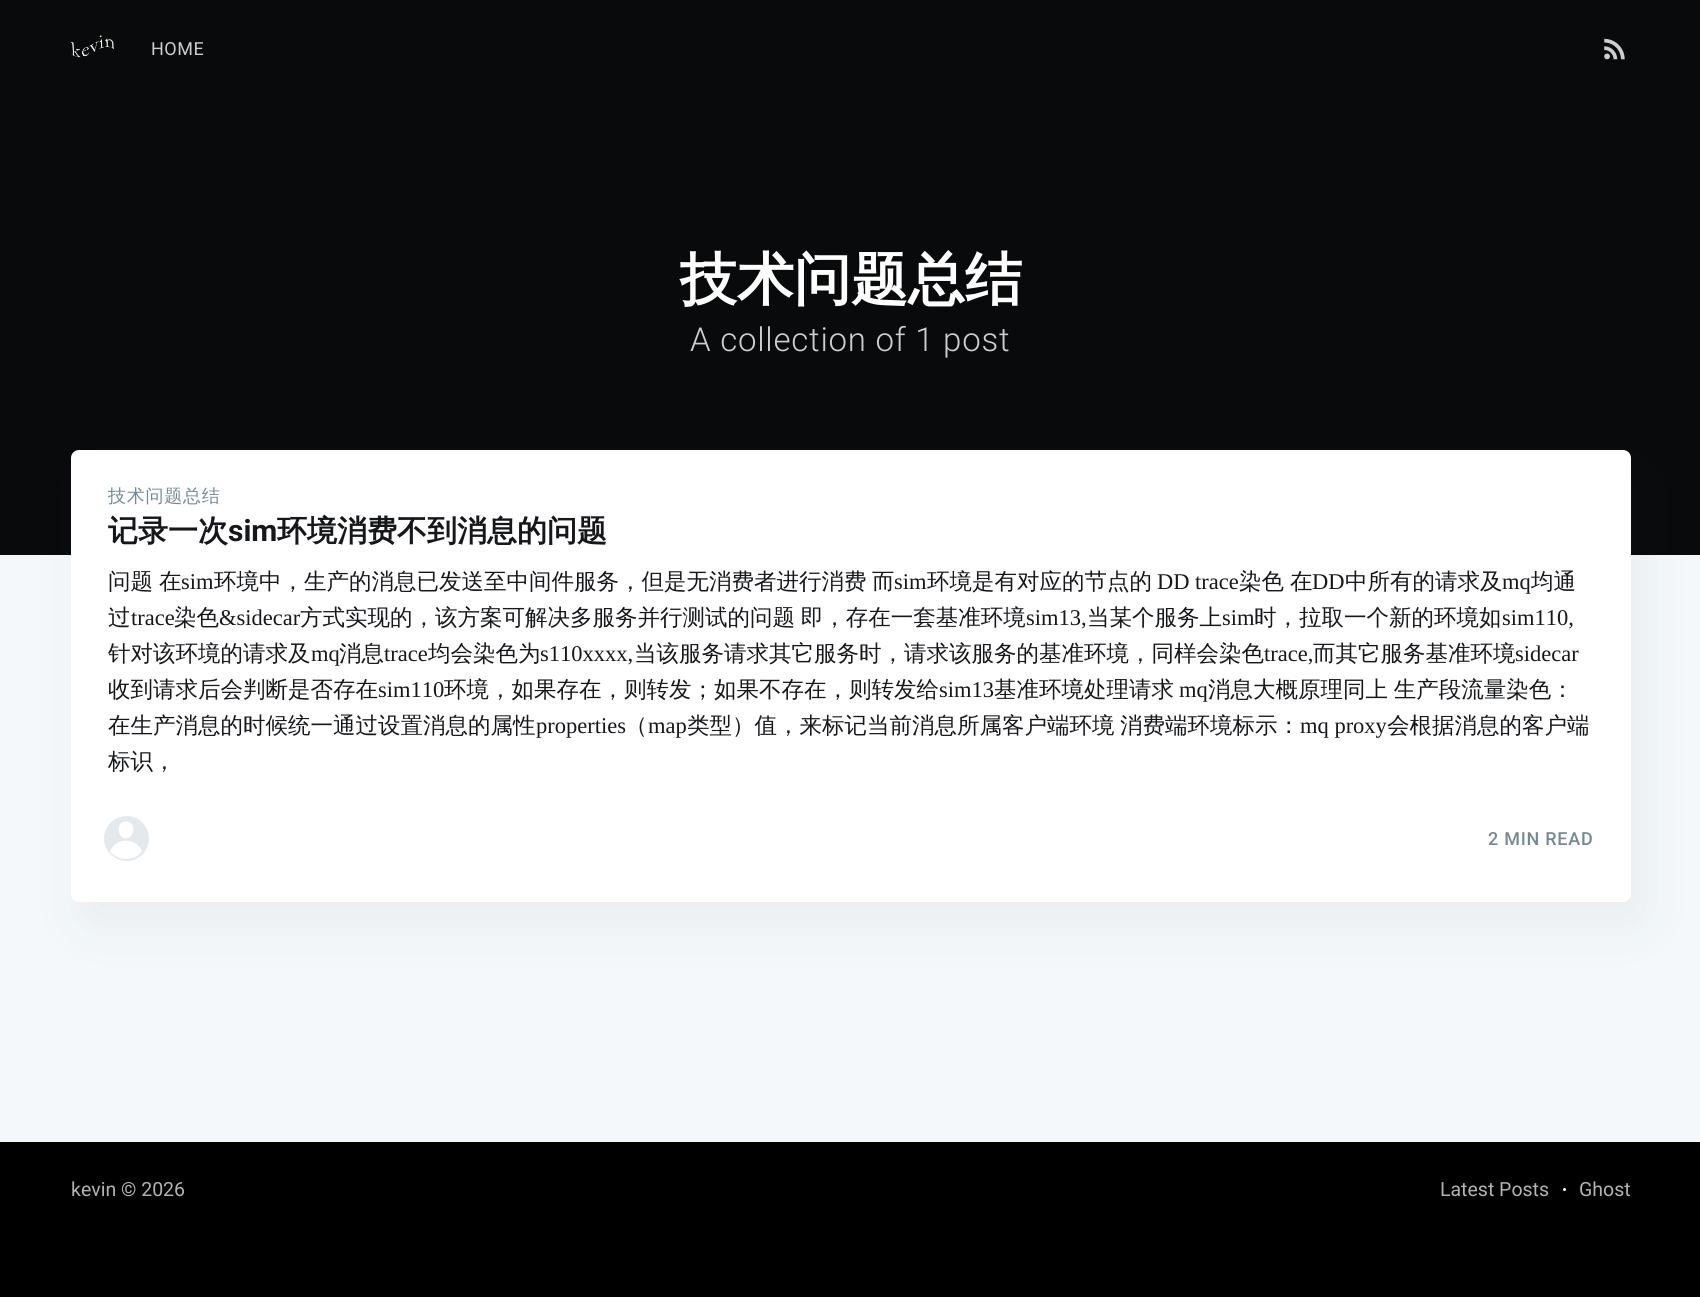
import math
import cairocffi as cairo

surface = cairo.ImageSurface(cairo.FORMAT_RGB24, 1700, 1297)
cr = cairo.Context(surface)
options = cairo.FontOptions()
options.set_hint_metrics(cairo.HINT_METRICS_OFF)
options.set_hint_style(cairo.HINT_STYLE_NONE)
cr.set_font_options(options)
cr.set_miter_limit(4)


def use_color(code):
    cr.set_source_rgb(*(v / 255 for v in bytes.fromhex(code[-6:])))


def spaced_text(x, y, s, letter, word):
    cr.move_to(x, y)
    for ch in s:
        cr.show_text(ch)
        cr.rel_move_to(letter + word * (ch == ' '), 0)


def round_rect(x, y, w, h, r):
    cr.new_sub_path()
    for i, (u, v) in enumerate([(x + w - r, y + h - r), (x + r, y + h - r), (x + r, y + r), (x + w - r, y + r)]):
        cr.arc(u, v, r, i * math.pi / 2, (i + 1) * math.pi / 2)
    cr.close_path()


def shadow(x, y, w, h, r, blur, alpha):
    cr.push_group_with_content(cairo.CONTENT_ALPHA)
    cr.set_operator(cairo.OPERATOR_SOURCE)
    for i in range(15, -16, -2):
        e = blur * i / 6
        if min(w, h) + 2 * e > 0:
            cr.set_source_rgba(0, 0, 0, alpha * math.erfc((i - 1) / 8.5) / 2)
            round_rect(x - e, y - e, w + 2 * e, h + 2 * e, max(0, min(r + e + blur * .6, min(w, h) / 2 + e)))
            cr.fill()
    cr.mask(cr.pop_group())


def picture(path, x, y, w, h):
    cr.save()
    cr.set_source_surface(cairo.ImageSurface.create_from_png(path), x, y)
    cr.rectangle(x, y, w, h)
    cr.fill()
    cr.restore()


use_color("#f4f8fb")
cr.paint()
use_color("#090a0b")
cr.rectangle(0, 0, 1700, 555)
cr.fill()
picture("img1.png", 71, 35, 43, 23)
cr.select_font_face("Roboto")
cr.set_font_size(18)
use_color("#cecece")
spaced_text(151, 55, "HOME", 0.5, 0)
picture("img2.png", 1604, 38, 21, 22)
cr.select_font_face("WenQuanYi Zen Hei", cairo.FONT_SLANT_NORMAL, cairo.FONT_WEIGHT_BOLD)
cr.set_font_size(57)
use_color("#ffffff")
cr.move_to(680, 299)
cr.show_text("技术问题总结")
cr.select_font_face("Roboto Light")
cr.set_font_size(33)
use_color("#cecece")
spaced_text(690, 351, "A collection of 1 post", 0.75, 0)
use_color("#272c31")
shadow(83, 471, 1560, 452, 8, 28.5, 0.06)
use_color("#ffffff")
round_rect(71, 450, 1560, 452, 8)
cr.fill()
cr.select_font_face("WenQuanYi Zen Hei Medium")
cr.set_font_size(18)
use_color("#738a94")
spaced_text(108, 502, "技术问题总结", 0.75, 0)
cr.select_font_face("WenQuanYi Zen Hei", cairo.FONT_SLANT_NORMAL, cairo.FONT_WEIGHT_BOLD)
cr.set_font_size(30)
use_color("#15171a")
cr.move_to(108, 541)
cr.show_text("记录一次")
cr.select_font_face("Roboto", cairo.FONT_SLANT_NORMAL, cairo.FONT_WEIGHT_BOLD)
cr.move_to(228, 541)
cr.show_text("sim")
cr.select_font_face("WenQuanYi Zen Hei", cairo.FONT_SLANT_NORMAL, cairo.FONT_WEIGHT_BOLD)
cr.move_to(277, 541)
cr.show_text("环境消费不到消息的问题")
cr.select_font_face("WenQuanYi Zen Hei Medium")
cr.set_font_size(22.5)
cr.move_to(108, 589)
cr.show_text("问题")
cr.move_to(159, 589)
cr.show_text("在")
cr.select_font_face("Liberation Serif")
cr.move_to(181, 589)
cr.show_text("sim")
cr.select_font_face("WenQuanYi Zen Hei Medium")
cr.move_to(214, 589)
cr.show_text("环境中，生产的消息已发送至中间件服务，但是无消费者进行消费")
cr.move_to(872, 589)
cr.show_text("而")
cr.select_font_face("Liberation Serif")
cr.move_to(894, 589)
cr.show_text("sim")
cr.select_font_face("WenQuanYi Zen Hei Medium")
cr.move_to(927, 589)
cr.show_text("环境是有对应的节点的")
cr.select_font_face("Liberation Serif")
cr.move_to(1157, 589)
cr.show_text("DD trace")
cr.select_font_face("WenQuanYi Zen Hei Medium")
cr.move_to(1239, 589)
cr.show_text("染色")
cr.move_to(1290, 589)
cr.show_text("在")
cr.select_font_face("Liberation Serif")
cr.move_to(1312, 589)
cr.show_text("DD")
cr.select_font_face("WenQuanYi Zen Hei Medium")
cr.move_to(1345, 589)
cr.show_text("中所有的请求及")
cr.select_font_face("Liberation Serif")
cr.move_to(1502, 589)
cr.show_text("mq")
cr.select_font_face("WenQuanYi Zen Hei Medium")
cr.move_to(1531, 589)
cr.show_text("均通")
cr.move_to(108, 625)
cr.show_text("过")
cr.select_font_face("Liberation Serif")
cr.move_to(131, 625)
cr.show_text("trace")
cr.select_font_face("WenQuanYi Zen Hei Medium")
cr.move_to(174, 625)
cr.show_text("染色")
cr.select_font_face("Liberation Serif")
cr.move_to(219, 625)
cr.show_text("&sidecar")
cr.select_font_face("WenQuanYi Zen Hei Medium")
spaced_text(300, 625, "方式实现的，该方案可解决多服务并行测试的问题 即，存在一套基准环境", 0, -1)
cr.select_font_face("Liberation Serif")
cr.move_to(1026, 625)
cr.show_text("sim13,")
cr.select_font_face("WenQuanYi Zen Hei Medium")
cr.move_to(1087, 625)
cr.show_text("当某个服务上")
cr.select_font_face("Liberation Serif")
cr.move_to(1222, 625)
cr.show_text("sim")
cr.select_font_face("WenQuanYi Zen Hei Medium")
cr.move_to(1254, 625)
cr.show_text("时，拉取一个新的环境如")
cr.select_font_face("Liberation Serif")
cr.move_to(1502, 625)
cr.show_text("sim110,")
cr.select_font_face("WenQuanYi Zen Hei Medium")
cr.move_to(108, 661)
cr.show_text("针对该环境的请求及")
cr.select_font_face("Liberation Serif")
cr.move_to(311, 661)
cr.show_text("mq")
cr.select_font_face("WenQuanYi Zen Hei Medium")
cr.move_to(339, 661)
cr.show_text("消息")
cr.select_font_face("Liberation Serif")
cr.move_to(384, 661)
cr.show_text("trace")
cr.select_font_face("WenQuanYi Zen Hei Medium")
cr.move_to(428, 661)
cr.show_text("均会染色为")
cr.select_font_face("Liberation Serif")
cr.move_to(540, 661)
cr.show_text("s110xxxx,")
cr.select_font_face("WenQuanYi Zen Hei Medium")
cr.move_to(634, 661)
cr.show_text("当该服务请求其它服务时，请求该服务的基准环境，同样会染色")
cr.select_font_face("Liberation Serif")
cr.move_to(1264, 661)
cr.show_text("trace,")
cr.select_font_face("WenQuanYi Zen Hei Medium")
cr.move_to(1313, 661)
cr.show_text("而其它服务基准环境")
cr.select_font_face("Liberation Serif")
cr.move_to(1515, 661)
cr.show_text("sidecar")
cr.select_font_face("WenQuanYi Zen Hei Medium")
cr.move_to(108, 697)
cr.show_text("收到请求后会判断是否存在")
cr.select_font_face("Liberation Serif")
cr.move_to(378, 697)
cr.show_text("sim110")
cr.select_font_face("WenQuanYi Zen Hei Medium")
cr.move_to(444, 697)
cr.show_text("环境，如果存在，则转发；如果不存在，则转发给")
cr.select_font_face("Liberation Serif")
cr.move_to(939, 697)
cr.show_text("sim13")
cr.select_font_face("WenQuanYi Zen Hei Medium")
cr.move_to(994, 697)
cr.show_text("基准环境处理请求")
cr.select_font_face("Liberation Serif")
cr.move_to(1179, 697)
cr.show_text("mq")
cr.select_font_face("WenQuanYi Zen Hei Medium")
spaced_text(1208, 697, "消息大概原理同上 生产段流量染色：", 0, -1)
cr.move_to(108, 733)
cr.show_text("在生产消息的时候统一通过设置消息的属性")
cr.select_font_face("Liberation Serif")
cr.move_to(536, 733)
cr.show_text("properties")
cr.select_font_face("WenQuanYi Zen Hei Medium")
cr.move_to(625, 733)
cr.show_text("（")
cr.select_font_face("Liberation Serif")
cr.move_to(648, 733)
cr.show_text("map")
cr.select_font_face("WenQuanYi Zen Hei Medium")
cr.move_to(687, 733)
cr.show_text("类型）值，来标记当前消息所属客户端环境")
cr.move_to(1120, 733)
cr.show_text("消费端环境标示：")
cr.select_font_face("Liberation Serif")
cr.move_to(1300, 733)
cr.show_text("mq proxy")
cr.select_font_face("WenQuanYi Zen Hei Medium")
cr.move_to(1387, 733)
cr.show_text("会根据消息的客户端")
cr.move_to(108, 769)
cr.show_text("标识，")
use_color("#e3e9ed")
cr.new_path()
cr.arc(126.5, 838.5, 24, 0, 2 * math.pi)
cr.fill_preserve()
use_color("#ffffff")
cr.set_line_width(3)
cr.stroke()
cr.set_fill_rule(cairo.FILL_RULE_EVEN_ODD)
cr.new_path()
cr.move_to(110, 851.5)
cr.curve_to(115.5, 837, 136.5, 837, 142, 851.5)
cr.curve_to(134, 861.5, 118, 861.5, 110, 851.5)
cr.close_path()
cr.move_to(126, 838.5)
cr.curve_to(134.5, 838.5, 137, 821.5, 126, 821.5)
cr.curve_to(115, 821.5, 117.5, 838.5, 126, 838.5)
cr.close_path()
cr.fill()
cr.select_font_face("Roboto Medium")
cr.set_font_size(18)
use_color("#738a94")
spaced_text(1488, 845, "2 MIN READ", 0.75, 0)
use_color("#000000")
cr.rectangle(0, 1142, 1700, 155)
cr.fill()
cr.select_font_face("Roboto")
cr.set_font_size(19.5)
use_color("#b3b3b3")
cr.move_to(71, 1196)
cr.show_text("kevin © 2026")
cr.move_to(1440, 1196)
cr.show_text("Latest Posts")
use_color("#ffffff")
cr.new_path()
cr.arc(1564.5, 1189.5, 1.5, 0, 2 * math.pi)
cr.fill()
use_color("#b3b3b3")
cr.move_to(1579, 1196)
cr.show_text("Ghost")
surface.write_to_png("result.png")
